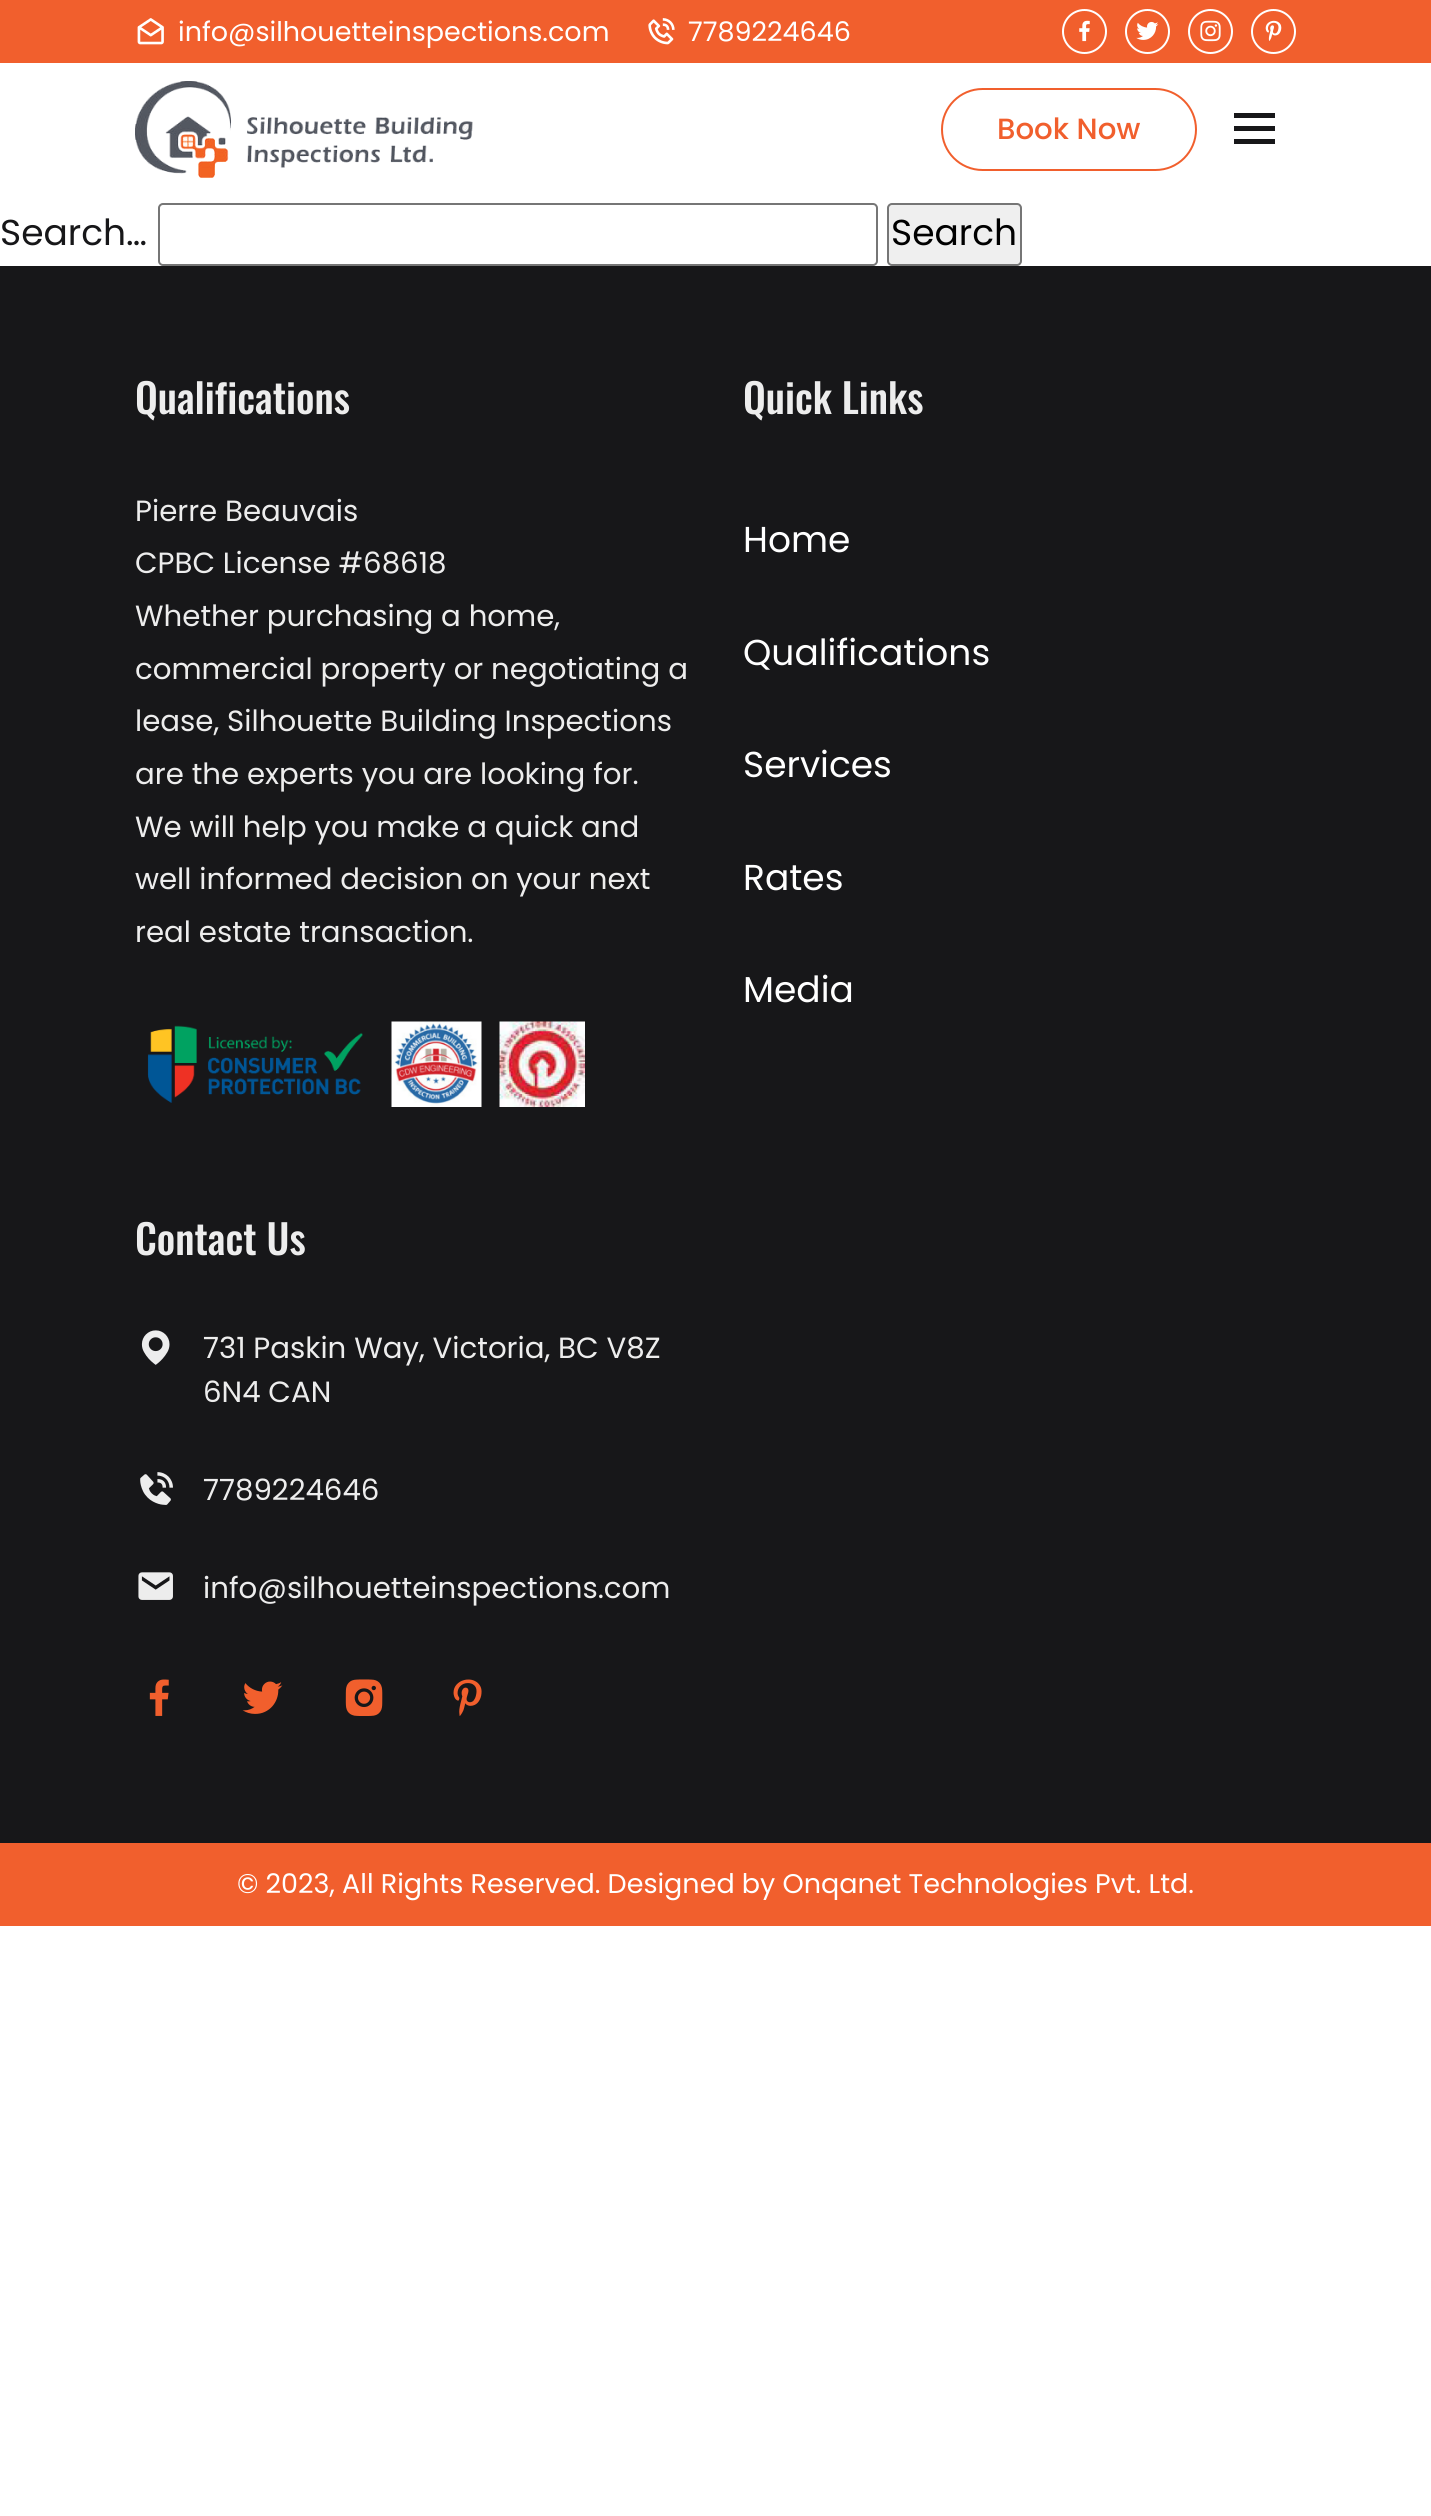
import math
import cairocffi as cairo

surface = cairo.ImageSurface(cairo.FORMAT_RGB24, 1431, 2516)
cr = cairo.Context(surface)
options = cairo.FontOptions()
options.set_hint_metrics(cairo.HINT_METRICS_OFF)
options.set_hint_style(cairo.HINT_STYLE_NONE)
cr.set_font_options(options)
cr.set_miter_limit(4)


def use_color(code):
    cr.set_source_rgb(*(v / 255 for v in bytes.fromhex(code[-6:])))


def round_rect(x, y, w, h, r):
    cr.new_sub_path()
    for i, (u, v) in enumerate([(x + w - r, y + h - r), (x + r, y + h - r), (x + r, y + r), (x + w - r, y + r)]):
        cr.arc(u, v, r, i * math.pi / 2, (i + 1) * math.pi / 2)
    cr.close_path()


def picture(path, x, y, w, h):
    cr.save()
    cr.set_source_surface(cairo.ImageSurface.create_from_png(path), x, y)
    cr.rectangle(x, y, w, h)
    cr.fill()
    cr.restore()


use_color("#ffffff")
cr.paint()
use_color("#f15f2d")
cr.rectangle(0, 0, 1431, 63)
cr.fill()
picture("img1.png", 137, 18, 27, 27)
cr.select_font_face("Poppins")
cr.set_font_size(27)
use_color("#ffffff")
cr.move_to(178, 41)
cr.show_text("info@silhouetteinspections.com")
picture("img2.png", 648, 18, 27, 27)
cr.move_to(688, 41)
cr.show_text("7789224646")
cr.new_path()
cr.arc(1084.5, 31.5, 21.5, 0, 2 * math.pi)
cr.stroke()
picture("img3.png", 1079, 20, 11, 22)
cr.arc(1147.5, 31.5, 21.5, 0, 2 * math.pi)
cr.stroke()
picture("img4.png", 1136, 21, 23, 19)
cr.arc(1210.5, 31.5, 21.5, 0, 2 * math.pi)
cr.stroke()
picture("img5.png", 1200, 20, 21, 22)
cr.arc(1273.5, 31.5, 21.5, 0, 2 * math.pi)
cr.stroke()
picture("img6.png", 1265, 20, 17, 21)
picture("img7.png", 135, 81, 338, 97)
round_rect(942, 89, 254, 81, 40.5)
use_color("#f15f2d")
cr.stroke()
cr.select_font_face("Poppins Medium")
cr.set_font_size(29.25)
cr.move_to(997, 139)
cr.show_text("Book Now")
use_color("#171719")
cr.new_path()
cr.move_to(1234, 113)
cr.line_to(1275, 113)
cr.line_to(1275, 118)
cr.line_to(1234, 118)
cr.close_path()
cr.move_to(1234, 126)
cr.line_to(1275, 126)
cr.line_to(1275, 131)
cr.line_to(1234, 131)
cr.close_path()
cr.move_to(1234, 139)
cr.line_to(1275, 139)
cr.line_to(1275, 144)
cr.line_to(1234, 144)
cr.close_path()
cr.fill()
cr.select_font_face("Poppins")
cr.set_font_size(36)
cr.move_to(0, 245)
cr.show_text("Search…")
round_rect(159, 204, 718, 61, 4)
use_color("#767676")
cr.stroke()
use_color("#efefef")
round_rect(888, 204, 133, 61, 4)
cr.fill_preserve()
use_color("#767676")
cr.stroke()
use_color("#000000")
cr.move_to(891, 245)
cr.show_text("Search")
use_color("#171719")
cr.rectangle(0, 266, 1431, 1577)
cr.fill()
cr.select_font_face("Oswald Medium")
cr.set_font_size(40.5)
use_color("#ededed")
cr.move_to(135, 414)
cr.show_text("Qualifications")
cr.select_font_face("Poppins")
cr.set_font_size(29.25)
cr.move_to(135, 521)
cr.show_text("Pierre Beauvais")
cr.move_to(135, 573)
cr.show_text("CPBC License #68618")
cr.move_to(135, 626)
cr.show_text("Whether purchasing a home,")
cr.move_to(135, 679)
cr.show_text("commercial property or negotiating a")
cr.move_to(135, 731)
cr.show_text("lease, Silhouette Building Inspections")
cr.move_to(135, 784)
cr.show_text("are the experts you are looking for.")
cr.move_to(135, 837)
cr.show_text("We will help you make a quick and")
cr.move_to(135, 889)
cr.show_text("well informed decision on your next")
cr.move_to(135, 942)
cr.show_text("real estate transaction.")
picture("img8.png", 147, 1025, 216, 78)
picture("img9.png", 391, 1021, 91, 86)
picture("img10.png", 499, 1021, 86, 86)
cr.select_font_face("Oswald Medium")
cr.set_font_size(40.5)
cr.move_to(743, 414)
cr.show_text("Quick Links")
cr.select_font_face("Poppins")
cr.set_font_size(36)
use_color("#ffffff")
cr.move_to(743, 552)
cr.show_text("Home")
cr.move_to(743, 665)
cr.show_text("Qualifications")
cr.move_to(743, 777)
cr.show_text("Services")
cr.move_to(743, 890)
cr.show_text("Rates")
cr.move_to(743, 1002)
cr.show_text("Media")
cr.select_font_face("Oswald Medium")
cr.set_font_size(40.5)
use_color("#ededed")
cr.move_to(135, 1255)
cr.show_text("Contact Us")
picture("img11.png", 141, 1330, 29, 35)
cr.select_font_face("Poppins")
cr.set_font_size(29.25)
cr.move_to(203, 1358)
cr.show_text("731 Paskin Way, Victoria, BC V8Z")
cr.move_to(203, 1402)
cr.show_text("6N4 CAN")
picture("img12.png", 140, 1472, 33, 33)
cr.move_to(203, 1500)
cr.show_text("7789224646")
picture("img13.png", 138, 1572, 35, 28)
cr.move_to(203, 1598)
cr.show_text("info@silhouetteinspections.com")
picture("img14.png", 149, 1679, 20, 37)
picture("img15.png", 242, 1681, 41, 33)
picture("img16.png", 345, 1679, 38, 37)
picture("img17.png", 453, 1679, 29, 37)
use_color("#f15f2d")
cr.rectangle(0, 1843, 1431, 83)
cr.fill()
cr.set_font_size(27)
use_color("#ffffff")
cr.move_to(237, 1893)
cr.show_text("© 2023, All Rights Reserved. Designed by Onqanet Technologies Pvt. Ltd.")
surface.write_to_png("result.png")
